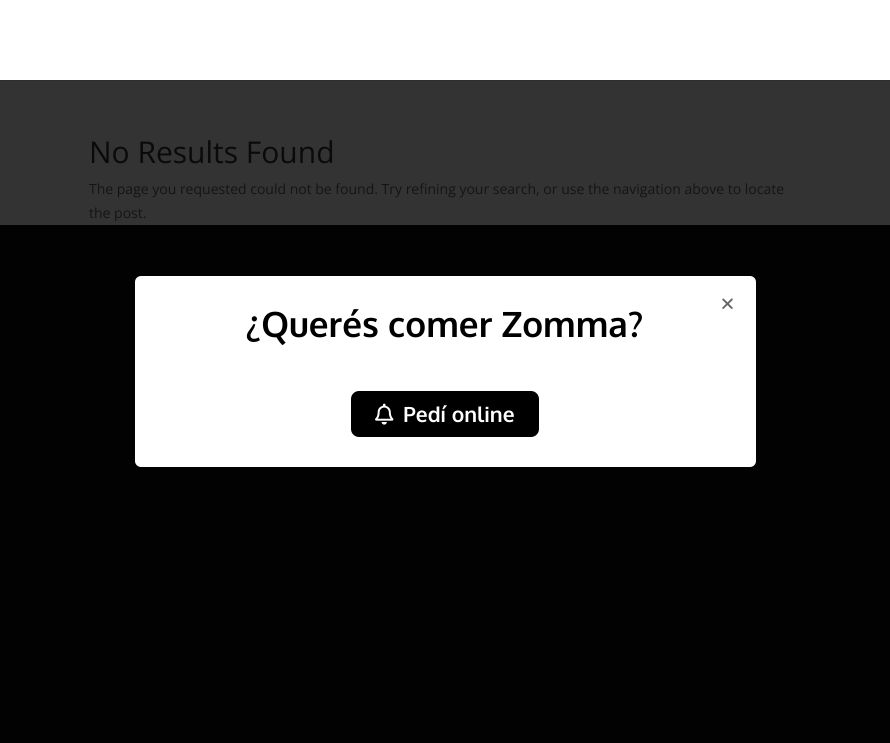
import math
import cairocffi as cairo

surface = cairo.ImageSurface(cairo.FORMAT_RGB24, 890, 743)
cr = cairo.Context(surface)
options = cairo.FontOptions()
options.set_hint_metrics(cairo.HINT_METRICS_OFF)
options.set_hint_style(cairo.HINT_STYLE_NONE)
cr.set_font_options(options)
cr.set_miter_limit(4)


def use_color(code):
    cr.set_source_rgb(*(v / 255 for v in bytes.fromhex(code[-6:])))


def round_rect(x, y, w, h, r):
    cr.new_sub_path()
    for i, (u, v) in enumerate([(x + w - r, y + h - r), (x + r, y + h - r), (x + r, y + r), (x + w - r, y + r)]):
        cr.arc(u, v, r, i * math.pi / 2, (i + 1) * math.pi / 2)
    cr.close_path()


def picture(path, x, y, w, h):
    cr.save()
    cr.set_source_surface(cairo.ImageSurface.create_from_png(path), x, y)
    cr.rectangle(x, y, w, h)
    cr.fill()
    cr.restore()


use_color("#020202")
cr.paint()
use_color("#2e2e2e")
cr.rectangle(0, 80, 890, 1)
cr.fill()
use_color("#ffffff")
cr.rectangle(0, 0, 890, 80)
cr.fill()
use_color("#333333")
cr.rectangle(0, 81, 890, 144)
cr.fill()
cr.select_font_face("Open Sans")
cr.set_font_size(30)
use_color("#0a0a0a")
cr.move_to(89, 163)
cr.show_text("No Results Found")
cr.set_font_size(14)
use_color("#141414")
cr.move_to(89, 194)
cr.show_text("The page you requested could not be found. Try refining your search, or use the navigation above to locate")
cr.move_to(89, 218)
cr.show_text("the post.")
use_color("#ffffff")
round_rect(135, 276, 621, 191, 6)
cr.fill()
picture("img1.png", 722, 298, 11, 11)
cr.select_font_face("Oxygen", cairo.FONT_SLANT_NORMAL, cairo.FONT_WEIGHT_BOLD)
cr.set_font_size(35)
use_color("#000000")
cr.move_to(246, 337)
cr.show_text("¿Querés comer Zomma?")
round_rect(351, 391, 188, 46, 8)
cr.fill()
picture("img2.png", 375, 403, 19, 22)
cr.set_font_size(21)
use_color("#ffffff")
cr.move_to(403, 422)
cr.show_text("Pedí online")
surface.write_to_png("result.png")
